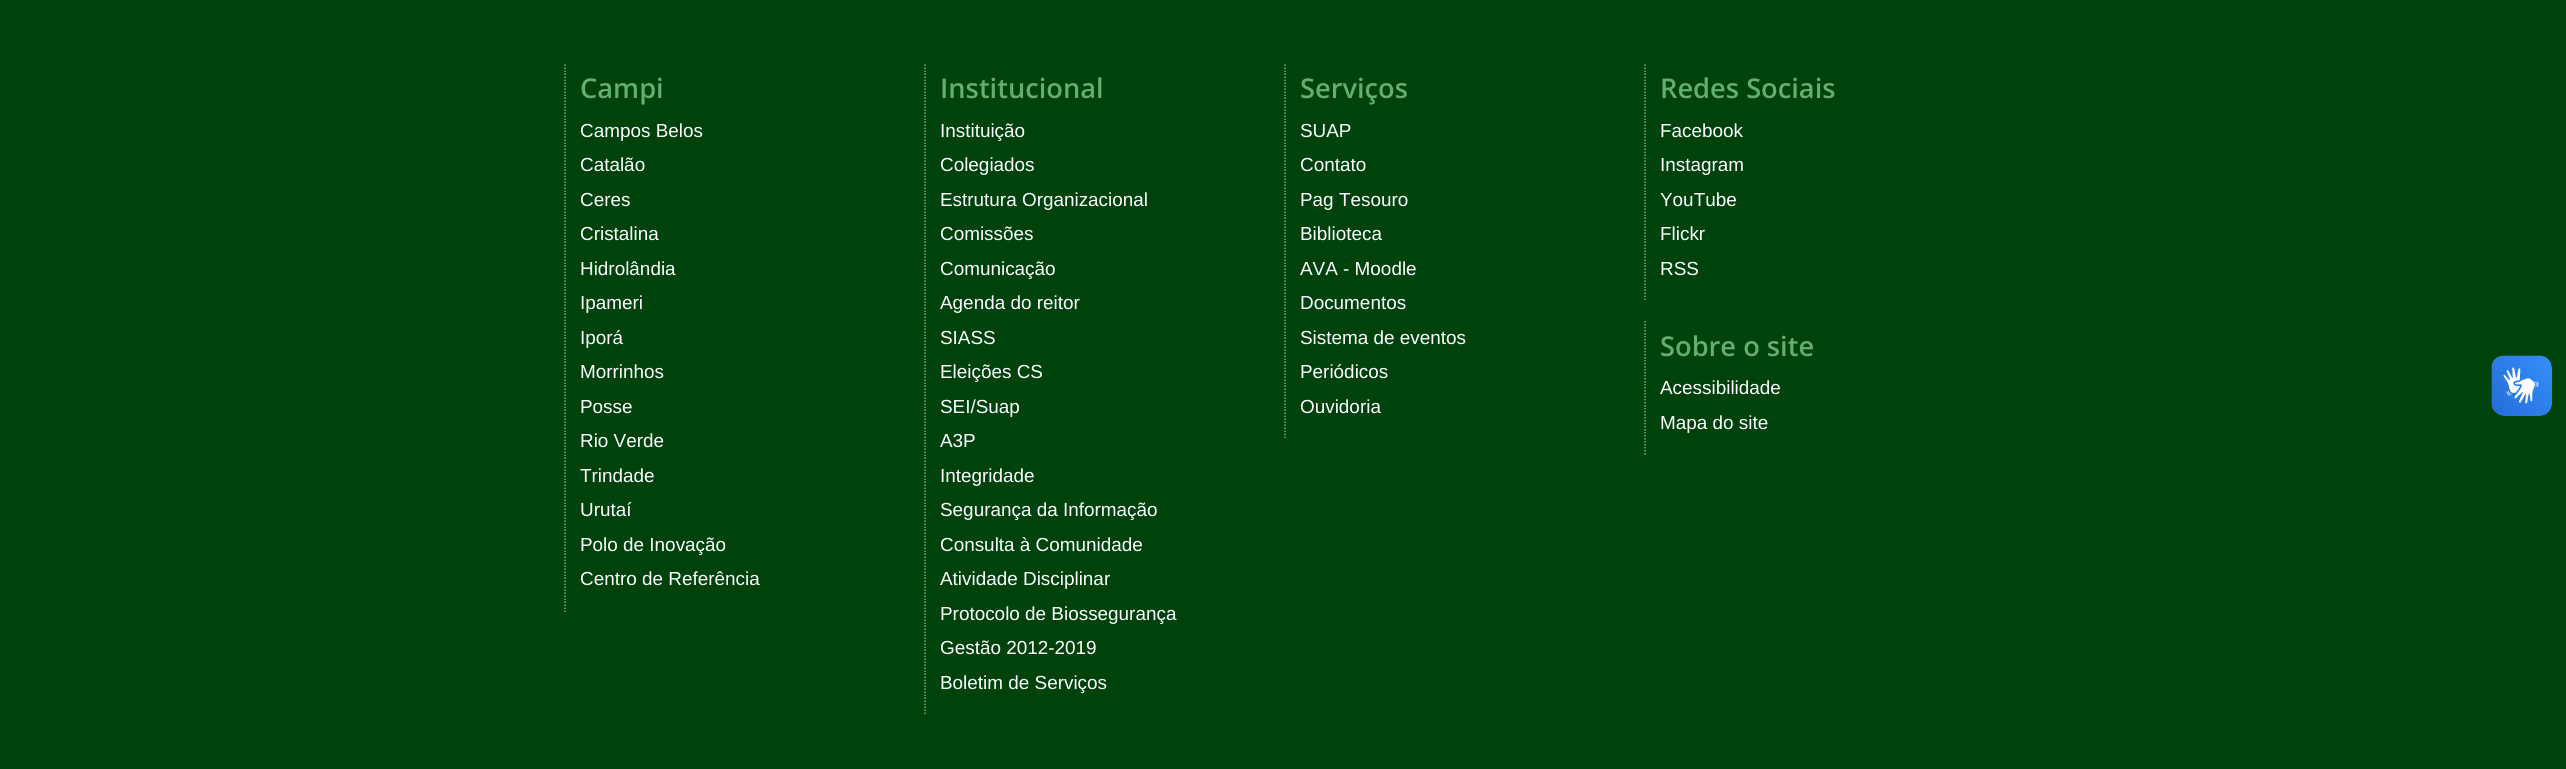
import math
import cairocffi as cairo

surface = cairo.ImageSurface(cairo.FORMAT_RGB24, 2566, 769)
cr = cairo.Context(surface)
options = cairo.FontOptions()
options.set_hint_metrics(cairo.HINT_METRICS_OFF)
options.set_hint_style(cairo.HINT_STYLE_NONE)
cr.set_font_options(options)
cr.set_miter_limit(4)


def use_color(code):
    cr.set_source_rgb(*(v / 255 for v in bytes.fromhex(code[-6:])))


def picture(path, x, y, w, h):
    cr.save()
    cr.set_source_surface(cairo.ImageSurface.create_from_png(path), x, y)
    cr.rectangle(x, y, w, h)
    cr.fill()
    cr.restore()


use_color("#00420c")
cr.paint()
cr.new_path()
cr.move_to(565, 64.5)
cr.line_to(565, 612)
use_color("#80a887")
cr.set_line_width(1.5)
cr.set_dash([1.5, 1.5])
cr.stroke()
cr.select_font_face("Open Sans SemiBold")
cr.set_font_size(27.25)
use_color("#61b06f")
cr.move_to(580, 98)
cr.show_text("Campi")
cr.select_font_face("Liberation Sans")
cr.set_font_size(18.9)
use_color("#ffffff")
cr.move_to(580, 137)
cr.show_text("Campos Belos")
cr.move_to(580, 171)
cr.show_text("Catalão")
cr.move_to(580, 206)
cr.show_text("Ceres")
cr.move_to(580, 240)
cr.show_text("Cristalina")
cr.move_to(580, 275)
cr.show_text("Hidrolândia")
cr.move_to(580, 309)
cr.show_text("Ipameri")
cr.move_to(580, 344)
cr.show_text("Iporá")
cr.move_to(580, 378)
cr.show_text("Morrinhos")
cr.move_to(580, 413)
cr.show_text("Posse")
cr.move_to(580, 447)
cr.show_text("Rio Verde")
cr.move_to(580, 482)
cr.show_text("Trindade")
cr.move_to(580, 516)
cr.show_text("Urutaí")
cr.move_to(580, 551)
cr.show_text("Polo de Inovação")
cr.move_to(580, 585)
cr.show_text("Centro de Referência")
cr.new_path()
cr.move_to(925, 64.5)
cr.line_to(925, 715.5)
use_color("#80a887")
cr.stroke()
cr.select_font_face("Open Sans SemiBold")
cr.set_font_size(27.25)
use_color("#61b06f")
cr.move_to(940, 98)
cr.show_text("Institucional")
cr.select_font_face("Liberation Sans")
cr.set_font_size(18.9)
use_color("#ffffff")
cr.move_to(940, 137)
cr.show_text("Instituição")
cr.move_to(940, 171)
cr.show_text("Colegiados")
cr.move_to(940, 206)
cr.show_text("Estrutura Organizacional")
cr.move_to(940, 240)
cr.show_text("Comissões")
cr.move_to(940, 275)
cr.show_text("Comunicação")
cr.move_to(940, 309)
cr.show_text("Agenda do reitor")
cr.move_to(940, 344)
cr.show_text("SIASS")
cr.move_to(940, 378)
cr.show_text("Eleições CS")
cr.move_to(940, 413)
cr.show_text("SEI/Suap")
cr.move_to(940, 447)
cr.show_text("A3P")
cr.move_to(940, 482)
cr.show_text("Integridade")
cr.move_to(940, 516)
cr.show_text("Segurança da Informação")
cr.move_to(940, 551)
cr.show_text("Consulta à Comunidade")
cr.move_to(940, 585)
cr.show_text("Atividade Disciplinar")
cr.move_to(940, 620)
cr.show_text("Protocolo de Biossegurança")
cr.move_to(940, 654)
cr.show_text("Gestão 2012-2019")
cr.move_to(940, 689)
cr.show_text("Boletim de Serviços")
cr.new_path()
cr.move_to(1285, 64.5)
cr.line_to(1285, 439.5)
use_color("#80a887")
cr.stroke()
cr.select_font_face("Open Sans SemiBold")
cr.set_font_size(27.25)
use_color("#61b06f")
cr.move_to(1300, 98)
cr.show_text("Serviços")
cr.select_font_face("Liberation Sans")
cr.set_font_size(18.9)
use_color("#ffffff")
cr.move_to(1300, 137)
cr.show_text("SUAP")
cr.move_to(1300, 171)
cr.show_text("Contato")
cr.move_to(1300, 206)
cr.show_text("Pag Tesouro")
cr.move_to(1300, 240)
cr.show_text("Biblioteca")
cr.move_to(1300, 275)
cr.show_text("AVA - Moodle")
cr.move_to(1300, 309)
cr.show_text("Documentos")
cr.move_to(1300, 344)
cr.show_text("Sistema de eventos")
cr.move_to(1300, 378)
cr.show_text("Periódicos")
cr.move_to(1300, 413)
cr.show_text("Ouvidoria")
cr.new_path()
cr.move_to(1645, 64.5)
cr.line_to(1645, 301.5)
use_color("#80a887")
cr.stroke()
cr.select_font_face("Open Sans SemiBold")
cr.set_font_size(27.25)
use_color("#61b06f")
cr.move_to(1660, 98)
cr.show_text("Redes Sociais")
cr.select_font_face("Liberation Sans")
cr.set_font_size(18.9)
use_color("#ffffff")
cr.move_to(1660, 137)
cr.show_text("Facebook")
cr.move_to(1660, 171)
cr.show_text("Instagram")
cr.move_to(1660, 206)
cr.show_text("YouTube")
cr.move_to(1660, 240)
cr.show_text("Flickr")
cr.move_to(1660, 275)
cr.show_text("RSS")
cr.new_path()
cr.move_to(1645, 321)
cr.line_to(1645, 456)
use_color("#80a887")
cr.stroke()
cr.select_font_face("Open Sans SemiBold")
cr.set_font_size(27.25)
use_color("#61b06f")
cr.move_to(1660, 356)
cr.show_text("Sobre o site")
cr.select_font_face("Liberation Sans")
cr.set_font_size(18.9)
use_color("#ffffff")
cr.move_to(1660, 394)
cr.show_text("Acessibilidade")
cr.move_to(1660, 429)
cr.show_text("Mapa do site")
picture("img1.png", 2491, 355, 61, 61)
picture("img2.png", 2492, 356, 60, 60)
surface.write_to_png("result.png")
